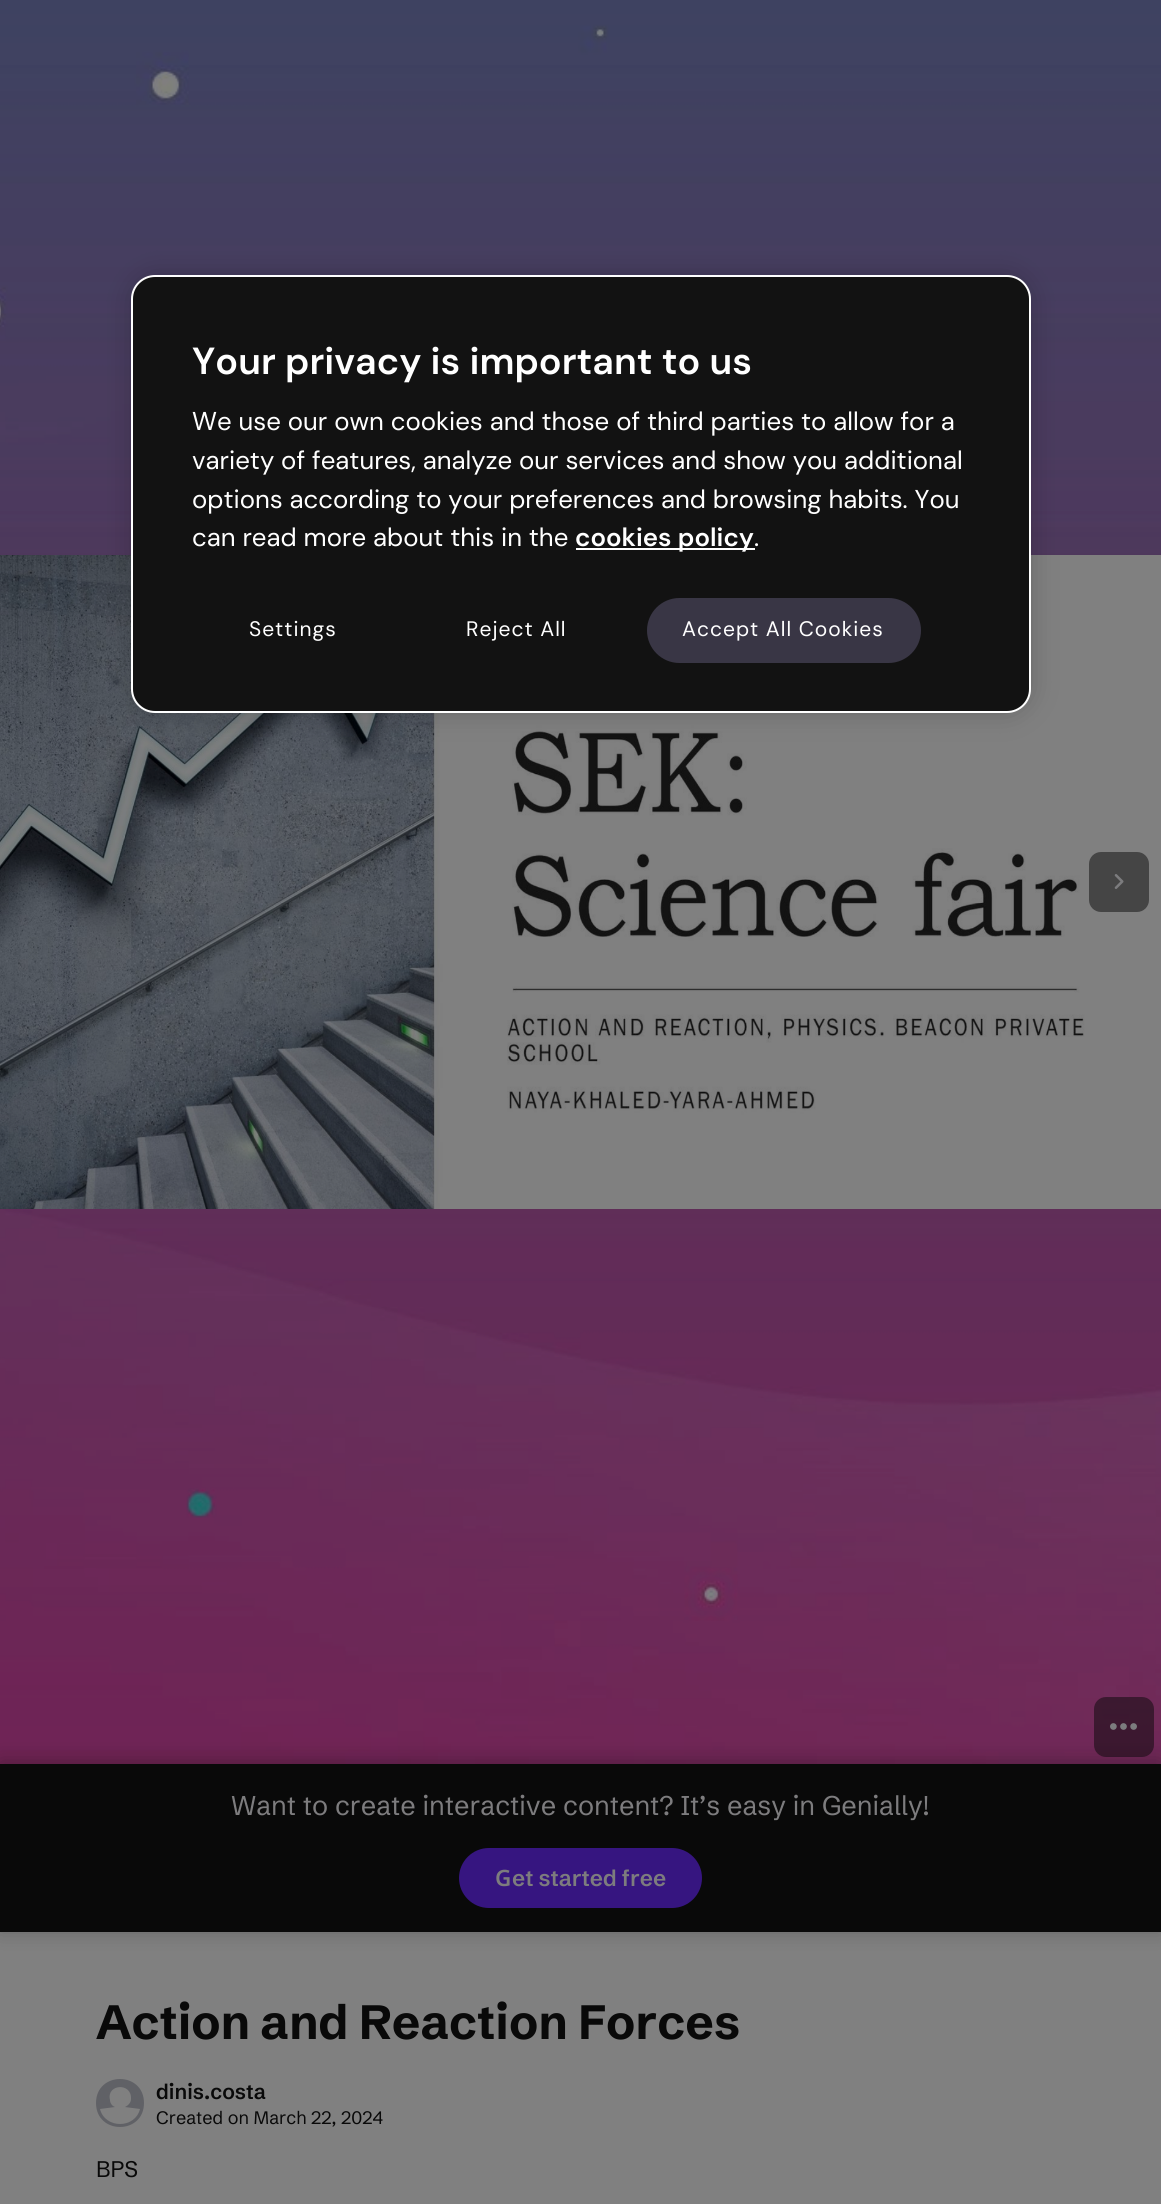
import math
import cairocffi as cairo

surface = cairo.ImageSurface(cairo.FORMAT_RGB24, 1161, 2204)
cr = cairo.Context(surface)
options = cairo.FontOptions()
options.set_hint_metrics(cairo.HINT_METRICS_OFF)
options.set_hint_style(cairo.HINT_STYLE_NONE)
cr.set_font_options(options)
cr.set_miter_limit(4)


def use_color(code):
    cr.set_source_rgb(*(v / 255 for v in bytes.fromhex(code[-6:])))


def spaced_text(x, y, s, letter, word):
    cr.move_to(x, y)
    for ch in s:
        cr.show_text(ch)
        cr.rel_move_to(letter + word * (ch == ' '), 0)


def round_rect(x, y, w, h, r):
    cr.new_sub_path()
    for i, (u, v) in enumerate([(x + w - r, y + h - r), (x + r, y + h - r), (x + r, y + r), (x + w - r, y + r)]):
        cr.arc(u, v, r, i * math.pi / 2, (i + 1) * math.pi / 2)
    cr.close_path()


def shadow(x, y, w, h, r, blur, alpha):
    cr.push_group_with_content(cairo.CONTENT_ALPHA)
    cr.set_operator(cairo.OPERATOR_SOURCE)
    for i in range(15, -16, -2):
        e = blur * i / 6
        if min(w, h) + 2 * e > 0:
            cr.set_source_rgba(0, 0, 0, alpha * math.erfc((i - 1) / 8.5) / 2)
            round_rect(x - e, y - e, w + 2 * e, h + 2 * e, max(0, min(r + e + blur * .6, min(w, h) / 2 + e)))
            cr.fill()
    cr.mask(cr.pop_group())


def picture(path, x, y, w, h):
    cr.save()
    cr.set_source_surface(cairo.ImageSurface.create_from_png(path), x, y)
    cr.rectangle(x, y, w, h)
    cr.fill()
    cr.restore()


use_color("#808080")
cr.paint()
picture("img1.png", 0, 0, 1161, 1764)
picture("img2.png", 0, 555, 1161, 654)
use_color("#000000")
shadow(131, 275, 900, 438, 24, 13.5, 0.2)
use_color("#121212")
round_rect(132, 276, 898, 436, 23)
cr.fill_preserve()
use_color("#ffffff")
cr.stroke()
cr.select_font_face("DM Sans SemiBold")
cr.set_font_size(37.75)
cr.move_to(192, 374)
cr.show_text("Your privacy is important to us")
cr.select_font_face("DM Sans")
cr.set_font_size(25.8)
cr.move_to(192, 430)
cr.show_text("We use our own cookies and those of third parties to allow for a")
cr.move_to(192, 469)
cr.show_text("variety of features, analyze our services and show you additional")
cr.move_to(192, 508)
cr.show_text("options according to your preferences and browsing habits. You")
cr.move_to(192, 546)
cr.show_text("can read more about this in the")
cr.rectangle(576, 548, 179, 2)
cr.fill()
cr.select_font_face("DM Sans SemiBold")
cr.move_to(575, 546)
cr.show_text("cookies policy")
cr.select_font_face("DM Sans")
cr.move_to(754, 546)
cr.show_text(".")
cr.set_font_size(21)
spaced_text(249, 636, "Settings", 1, 0)
spaced_text(466, 636, "Reject All", 1, 0)
use_color("#393645")
round_rect(646, 597, 276, 67, 33.5)
cr.fill_preserve()
use_color("#121212")
cr.stroke()
use_color("#ffffff")
spaced_text(682, 636, "Accept All Cookies", 1, 0)
use_color("#454545")
round_rect(1089, 852, 60, 60, 12)
cr.fill()
picture("img3.png", 1114, 874, 10, 15)
cr.set_source_rgba(0.035, 0.035, 0.035, 0.5)
round_rect(1094, 1697, 60, 60, 12)
cr.fill()
picture("img4.png", 1110, 1723, 27, 7)
use_color("#090909")
shadow(0, 1761, 1161, 168, 0, 10, 0.3)
use_color("#090909")
cr.rectangle(0, 1764, 1161, 168)
cr.fill()
cr.select_font_face("Schibsted Grotesk")
cr.set_font_size(27)
use_color("#7d7c7e")
cr.move_to(231, 1815)
cr.show_text("Want to create interactive content? It’s easy in Genially!")
use_color("#361580")
round_rect(459, 1848, 243, 60, 30)
cr.fill()
cr.select_font_face("Noto Sans SemiBold")
cr.set_font_size(22.5)
use_color("#7d7c7e")
cr.move_to(495, 1886)
cr.show_text("G")
cr.select_font_face("Schibsted Grotesk SemiBold")
cr.move_to(512, 1886)
cr.show_text("et started free")
cr.select_font_face("Schibsted Grotesk", cairo.FONT_SLANT_NORMAL, cairo.FONT_WEIGHT_BOLD)
cr.set_font_size(48)
use_color("#090909")
cr.move_to(96, 2039)
cr.show_text("Action and Reaction Forces")
use_color("#606166")
cr.new_path()
cr.move_to(144, 2103)
cr.curve_to(144, 2135, 96, 2135, 96, 2103)
cr.curve_to(96, 2071, 144, 2071, 144, 2103)
cr.fill()
use_color("#808080")
cr.new_path()
cr.move_to(140, 2109)
cr.line_to(125, 2107)
cr.curve_to(129, 2105, 131, 2102, 131, 2099)
cr.curve_to(132, 2082, 106, 2084, 110, 2100)
cr.curve_to(110, 2103, 112, 2106, 115, 2107)
cr.line_to(100, 2109)
cr.curve_to(105, 2129, 135, 2129, 140, 2109)
cr.fill()
cr.select_font_face("Schibsted Grotesk SemiBold")
cr.set_font_size(21)
use_color("#090909")
cr.move_to(156, 2099)
cr.show_text("dinis.costa")
cr.select_font_face("Schibsted Grotesk")
cr.set_font_size(18)
cr.move_to(156, 2124)
cr.show_text("Created on March 22, 2024")
cr.set_font_size(22.5)
cr.move_to(96, 2177)
cr.show_text("BPS")
surface.write_to_png("result.png")
